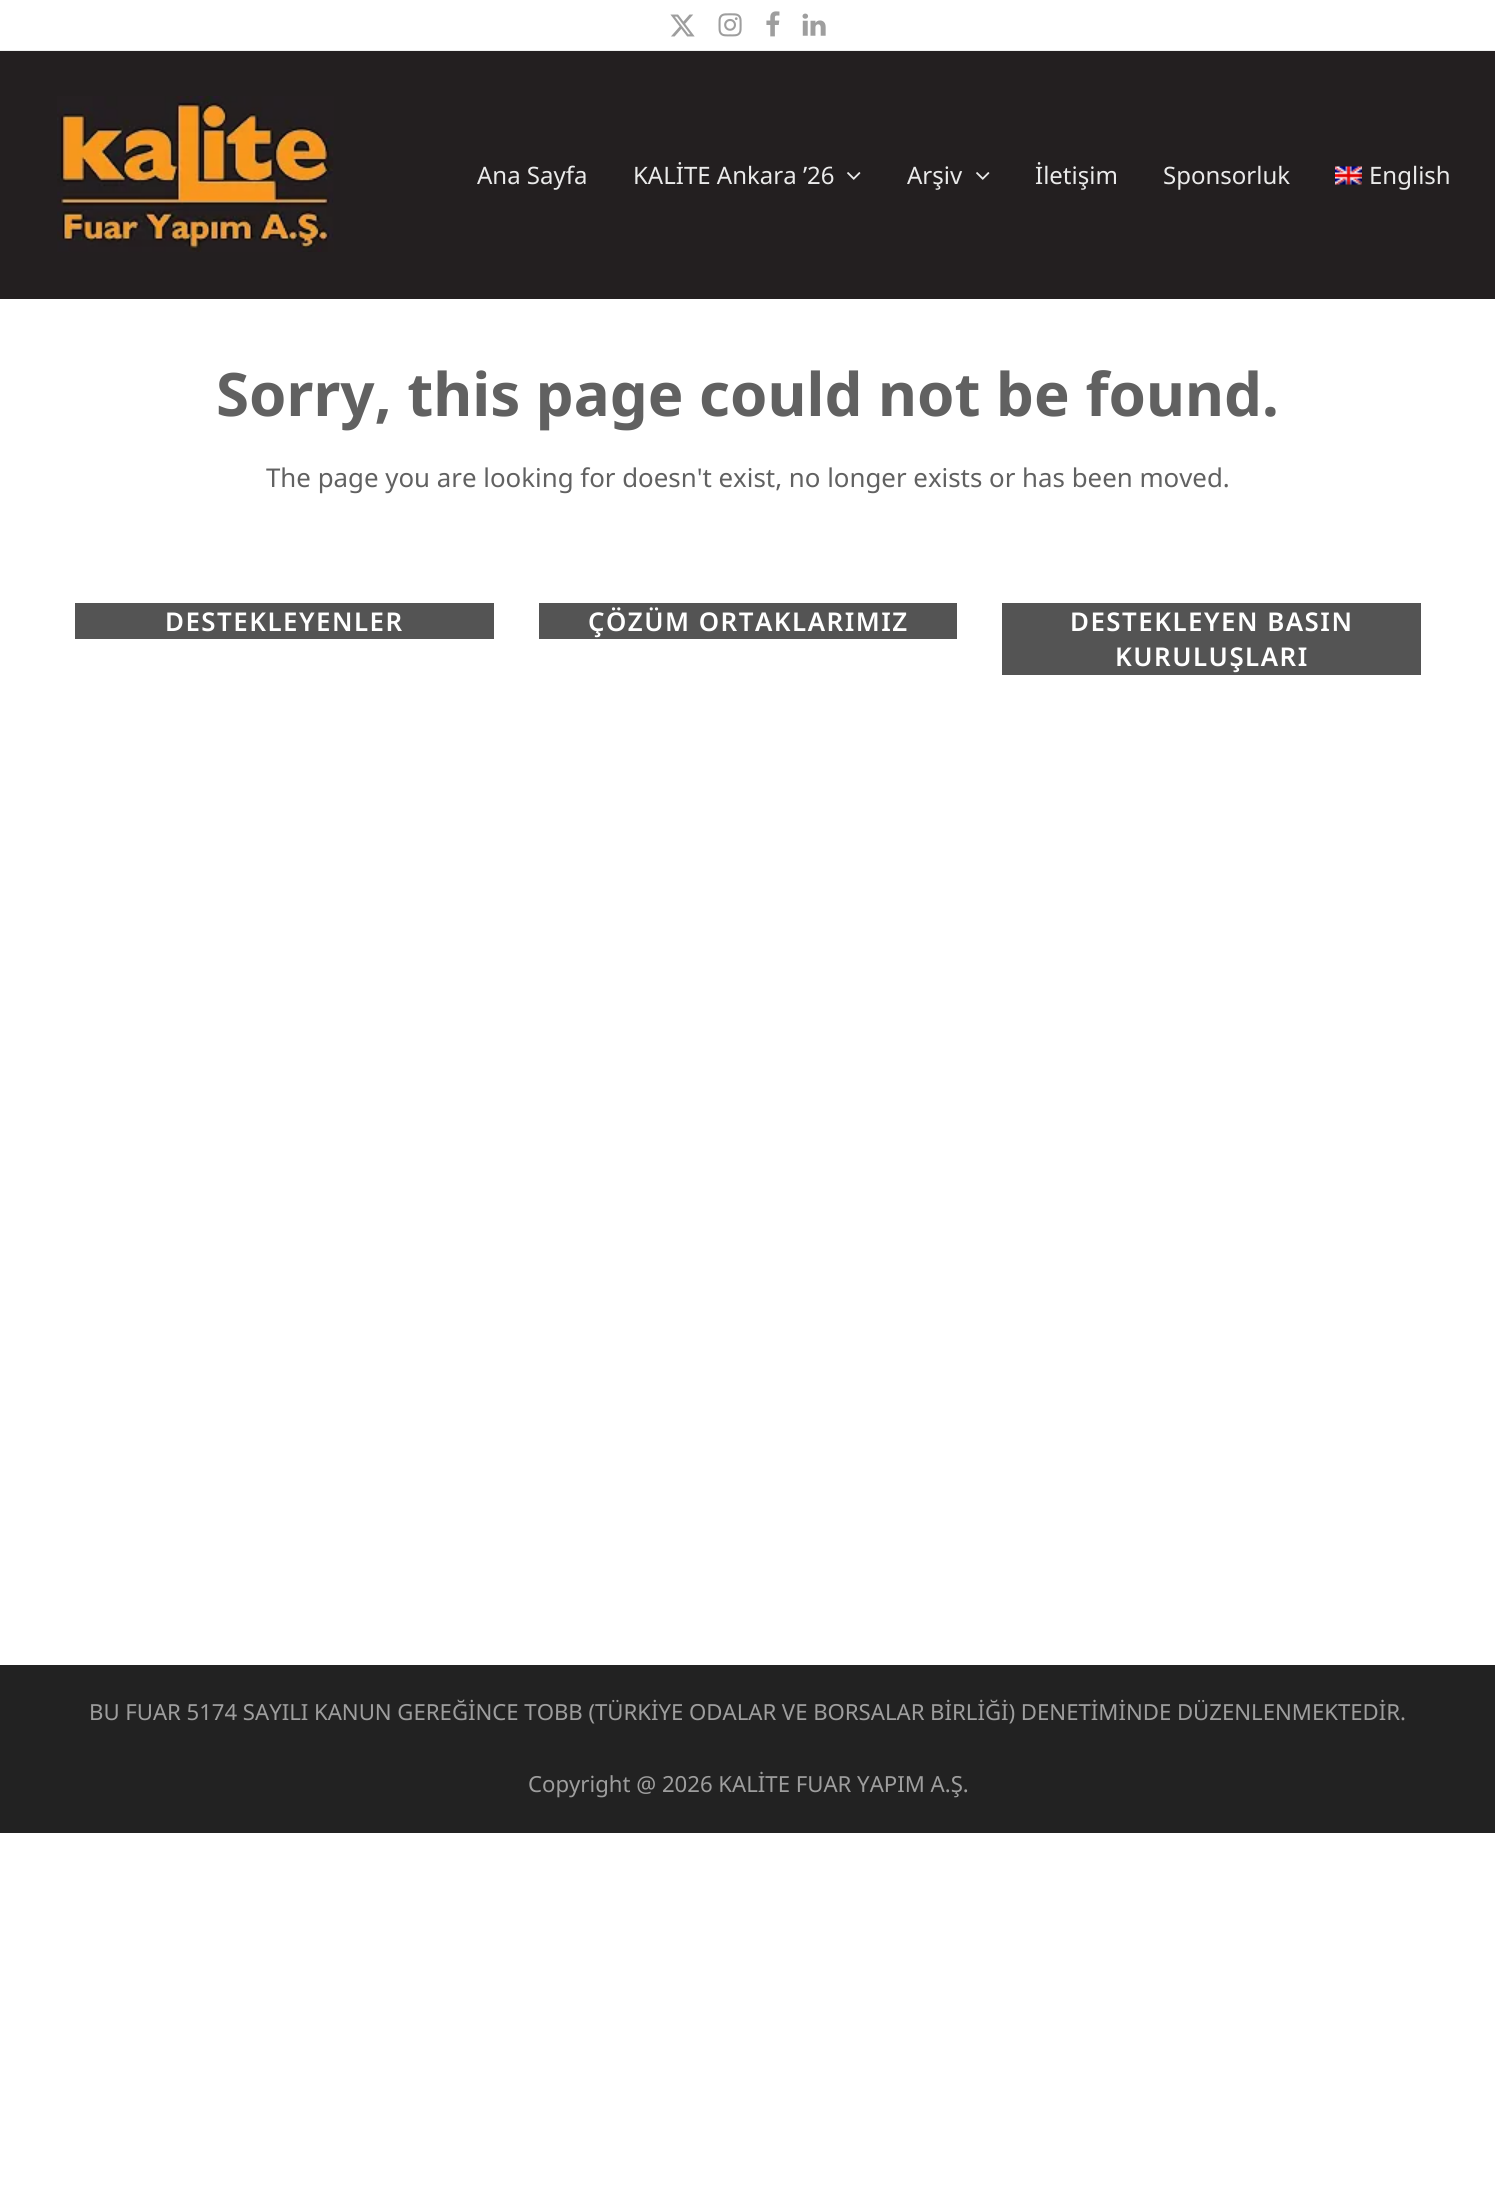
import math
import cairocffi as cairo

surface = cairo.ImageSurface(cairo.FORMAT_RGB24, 1495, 2209)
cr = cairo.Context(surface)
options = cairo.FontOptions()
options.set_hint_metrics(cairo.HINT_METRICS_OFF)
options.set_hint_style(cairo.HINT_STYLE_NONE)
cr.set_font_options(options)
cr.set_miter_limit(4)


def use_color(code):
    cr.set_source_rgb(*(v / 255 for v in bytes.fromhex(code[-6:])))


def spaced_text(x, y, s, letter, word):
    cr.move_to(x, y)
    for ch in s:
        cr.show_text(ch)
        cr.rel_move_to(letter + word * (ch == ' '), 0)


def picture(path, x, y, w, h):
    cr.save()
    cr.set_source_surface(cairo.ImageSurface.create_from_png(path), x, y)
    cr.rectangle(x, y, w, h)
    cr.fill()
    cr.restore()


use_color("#ffffff")
cr.paint()
use_color("#eeeeee")
cr.rectangle(0, 50, 1495, 1)
cr.fill()
picture("img1.png", 670, 14, 25, 23)
picture("img2.png", 718, 13, 24, 24)
picture("img3.png", 766, 11, 14, 26)
picture("img4.png", 802, 13, 24, 23)
use_color("#231f20")
cr.rectangle(0, 51, 1495, 248)
cr.fill()
picture("img5.png", 57, 96, 277, 156)
cr.select_font_face("Noto Sans")
cr.set_font_size(24)
use_color("#eaeaea")
cr.move_to(477, 184)
cr.show_text("Ana Sayfa")
cr.move_to(633, 184)
cr.show_text("KALİTE Ankara ’26")
picture("img6.png", 847, 172, 14, 8)
cr.move_to(907, 184)
cr.show_text("Arşiv")
picture("img6.png", 976, 172, 14, 8)
cr.move_to(1035, 184)
cr.show_text("İletişim")
cr.move_to(1163, 184)
cr.show_text("Sponsorluk")
picture("img7.png", 1335, 166, 27, 19)
cr.move_to(1369, 184)
cr.show_text("English")
cr.select_font_face("Noto Sans", cairo.FONT_SLANT_NORMAL, cairo.FONT_WEIGHT_BOLD)
cr.set_font_size(60)
use_color("#616161")
cr.move_to(216, 416)
cr.show_text("Sorry, this page could not be found.")
cr.select_font_face("Noto Sans")
cr.set_font_size(25.85)
cr.move_to(266, 487)
cr.show_text("The page you are looking for doesn't exist, no longer exists or has been moved.")
use_color("#545454")
cr.rectangle(75, 603, 419, 36)
cr.fill()
cr.select_font_face("Noto Sans SemiBold")
use_color("#ffffff")
spaced_text(165, 631, "DESTEKLEYENLER", 1.5, 0)
use_color("#545454")
cr.rectangle(539, 603, 418, 36)
cr.fill()
use_color("#ffffff")
spaced_text(588, 631, "ÇÖZÜM ORTAKLARIMIZ", 1.5, 0)
use_color("#545454")
cr.rectangle(1002, 603, 419, 72)
cr.fill()
use_color("#ffffff")
spaced_text(1070, 631, "DESTEKLEYEN BASIN", 1.5, 0)
spaced_text(1115, 666, "KURULUŞLARI", 1.5, 0)
use_color("#222222")
cr.rectangle(0, 1665, 1495, 168)
cr.fill()
cr.select_font_face("Noto Sans")
cr.set_font_size(22.15)
use_color("#9e9e9e")
spaced_text(89, 1720, "BU FUAR 5174 SAYILI KANUN GEREĞİNCE TOBB (TÜRKİYE ODALAR VE BORSALAR BİRLİĞİ) DENETİMİNDE DÜZENLENMEKTEDİR.", 0, -0.1)
cr.move_to(528, 1792)
cr.show_text("Copyright @ 2026 KALİTE FUAR YAPIM A.Ş.")
surface.write_to_png("result.png")
